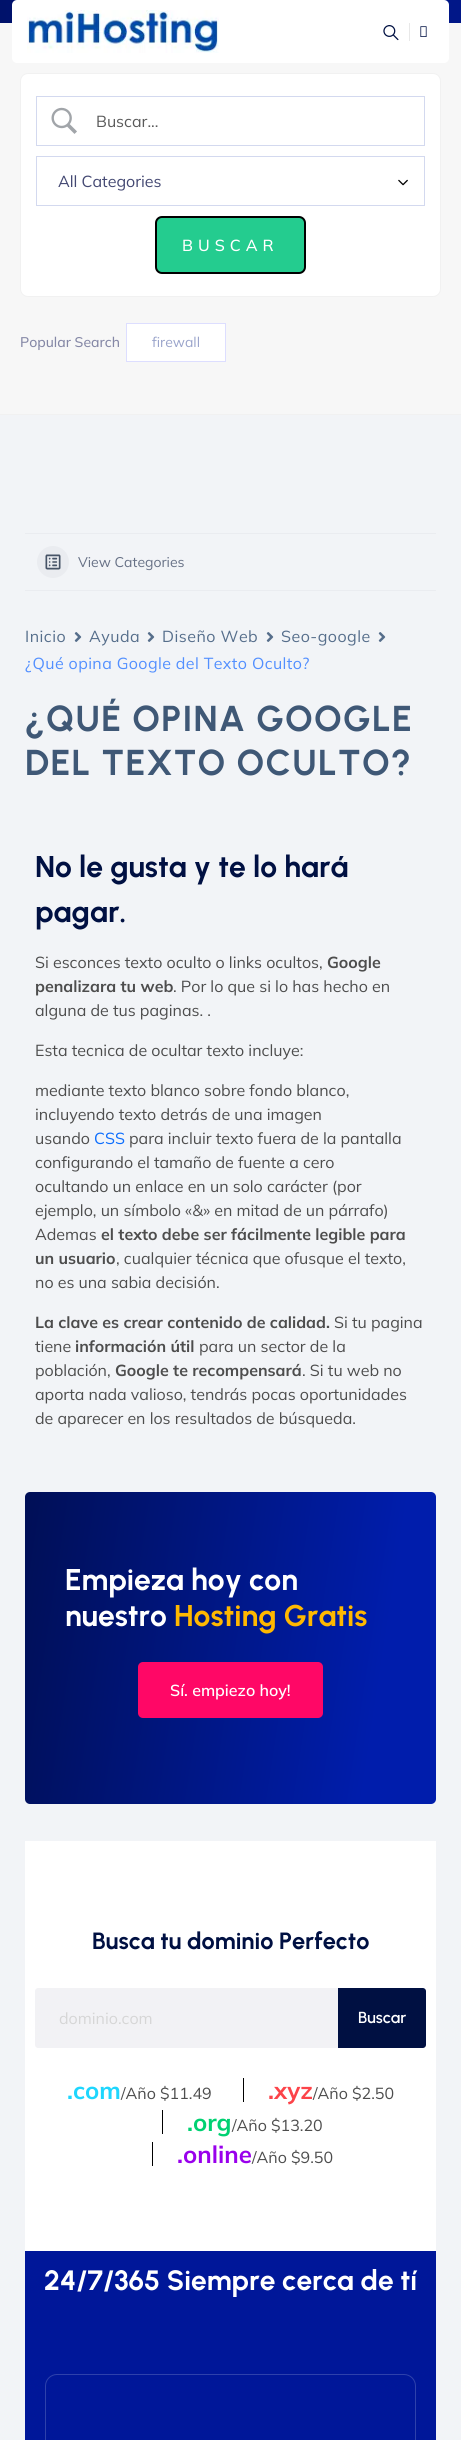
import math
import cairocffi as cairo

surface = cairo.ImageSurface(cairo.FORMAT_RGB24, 461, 2440)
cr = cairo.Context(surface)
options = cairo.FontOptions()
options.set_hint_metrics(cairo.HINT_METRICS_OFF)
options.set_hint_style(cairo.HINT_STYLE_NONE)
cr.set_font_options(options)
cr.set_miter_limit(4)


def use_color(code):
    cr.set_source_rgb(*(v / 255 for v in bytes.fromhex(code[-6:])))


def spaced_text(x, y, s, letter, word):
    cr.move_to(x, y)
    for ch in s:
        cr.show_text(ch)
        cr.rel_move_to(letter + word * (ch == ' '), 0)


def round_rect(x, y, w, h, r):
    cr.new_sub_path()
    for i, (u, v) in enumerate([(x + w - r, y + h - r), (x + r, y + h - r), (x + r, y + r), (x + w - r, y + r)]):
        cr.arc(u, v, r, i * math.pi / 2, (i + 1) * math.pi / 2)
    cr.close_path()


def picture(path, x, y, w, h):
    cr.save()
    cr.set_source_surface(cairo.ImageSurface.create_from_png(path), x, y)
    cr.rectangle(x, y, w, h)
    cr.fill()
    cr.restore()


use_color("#ffffff")
cr.paint()
gradient = cairo.LinearGradient(461, 11, 0, 12)
gradient.add_color_stop_rgba(0.1, 0.004, 0.09, 0.533, 1)
gradient.add_color_stop_rgba(1, 0, 0.071, 0.42, 1)
cr.set_source(gradient)
cr.rectangle(0, 0, 461, 23)
cr.fill()
use_color("#f7f7f7")
cr.rectangle(0, 23, 461, 391)
cr.fill()
use_color("#ffffff")
round_rect(12, 0, 437, 63, 5)
cr.fill()
picture("img1.png", 27, 10, 192, 43)
picture("img2.png", 383, 25, 16, 16)
use_color("#e8e8e8")
cr.rectangle(409, 23, 1, 18)
cr.fill()
picture("img3.png", 420, 26, 7, 11)
use_color("#f2f4f7")
cr.rectangle(0, 415, 461, 2025)
cr.fill()
use_color("#f1f1f1")
cr.rectangle(0, 414, 461, 1)
cr.fill()
use_color("#ffffff")
round_rect(20.5, 73.5, 420, 223, 7.5)
cr.fill_preserve()
use_color("#f1f1f1")
cr.set_line_width(1)
cr.stroke()
cr.rectangle(36.5, 96.5, 388, 49)
use_color("#d3d9ef")
cr.stroke()
picture("img4.png", 51, 107, 26, 27)
cr.select_font_face("Mulish")
cr.set_font_size(16)
use_color("#595959")
cr.move_to(96, 127)
cr.show_text("Buscar...")
picture("img5.png", 398, 179, 10, 7)
cr.rectangle(36.5, 156.5, 388, 49)
use_color("#d3d9ef")
cr.stroke()
use_color("#434872")
cr.move_to(58, 187)
cr.show_text("All Categories")
use_color("#24cc8f")
round_rect(156, 217, 149, 56, 6)
cr.fill_preserve()
use_color("#000000")
cr.set_line_width(2)
cr.stroke()
cr.select_font_face("Mulish Medium")
use_color("#ffffff")
spaced_text(182, 251, "BUSCAR", 5, 0)
cr.set_font_size(14)
use_color("#8588a6")
cr.move_to(20, 347)
cr.show_text("Popular Search")
use_color("#ffffff")
cr.rectangle(126.5, 323.5, 99, 38)
cr.fill_preserve()
use_color("#dddeff")
cr.set_line_width(1)
cr.stroke()
cr.select_font_face("Mulish")
use_color("#99a3ca")
cr.move_to(152, 347)
cr.show_text("firewall")
use_color("#eaecf0")
cr.rectangle(25, 533, 411, 1)
cr.fill()
cr.rectangle(25, 590, 411, 1)
cr.fill()
cr.arc(53, 562, 16, 0, 2 * math.pi)
cr.fill()
picture("img6.png", 45, 554, 16, 16)
use_color("#667085")
cr.move_to(78, 567)
cr.show_text("View Categories")
cr.set_font_size(16)
use_color("#566e8b")
spaced_text(25, 642, "Inicio", 0.5, 0)
picture("img7.png", 74, 632, 8, 10)
spaced_text(89, 642, "Ayuda", 0.5, 0)
picture("img7.png", 147, 632, 8, 10)
spaced_text(162, 642, "Diseño Web", 0.5, 0)
picture("img7.png", 266, 632, 8, 10)
spaced_text(281, 642, "Seo-google", 0.5, 0)
picture("img7.png", 378, 632, 8, 10)
use_color("#528fff")
spaced_text(25, 669, "¿Qué opina Google del Texto Oculto?", 0.4, 0)
cr.select_font_face("Urbanist", cairo.FONT_SLANT_NORMAL, cairo.FONT_WEIGHT_BOLD)
cr.set_font_size(36)
use_color("#3f5876")
spaced_text(25, 731, "¿QUÉ OPINA GOOGLE", 1.25, 0)
spaced_text(25, 775, "DEL TEXTO OCULTO?", 1.25, 0)
cr.set_font_size(30)
use_color("#001042")
cr.move_to(35, 877)
cr.show_text("No le gusta y te lo hará")
cr.move_to(35, 922)
cr.show_text("pagar.")
cr.select_font_face("Mulish")
cr.set_font_size(16)
use_color("#4d4d4d")
cr.move_to(35, 968)
cr.show_text("Si esconces texto oculto o links ocultos,")
cr.select_font_face("Mulish", cairo.FONT_SLANT_NORMAL, cairo.FONT_WEIGHT_BOLD)
cr.move_to(327, 968)
cr.show_text("Google")
cr.move_to(35, 992)
cr.show_text("penalizara tu web")
cr.select_font_face("Mulish")
cr.move_to(173, 992)
cr.show_text(". Por lo que si lo has hecho en")
cr.move_to(35, 1016)
cr.show_text("alguna de tus paginas. .")
cr.move_to(35, 1056)
cr.show_text("Esta tecnica de ocultar texto incluye:")
cr.move_to(35, 1096)
cr.show_text("mediante texto blanco sobre fondo blanco,")
cr.move_to(35, 1120)
cr.show_text("incluyendo texto detrás de una imagen")
cr.move_to(35, 1144)
cr.show_text("usando")
use_color("#0d6efd")
cr.move_to(94, 1144)
cr.show_text("CSS")
use_color("#4d4d4d")
cr.move_to(129, 1144)
cr.show_text("para incluir texto fuera de la pantalla")
cr.move_to(35, 1168)
cr.show_text("configurando el tamaño de fuente a cero")
cr.move_to(35, 1192)
cr.show_text("ocultando un enlace en un solo carácter (por")
cr.move_to(35, 1216)
cr.show_text("ejemplo, un símbolo «&» en mitad de un párrafo)")
cr.move_to(35, 1240)
cr.show_text("Ademas")
cr.select_font_face("Mulish", cairo.FONT_SLANT_NORMAL, cairo.FONT_WEIGHT_BOLD)
cr.move_to(101, 1240)
cr.show_text("el texto debe ser fácilmente legible para")
cr.move_to(35, 1264)
cr.show_text("un usuario")
cr.select_font_face("Mulish")
cr.move_to(116, 1264)
cr.show_text(", cualquier técnica que ofusque el texto,")
cr.move_to(35, 1288)
cr.show_text("no es una sabia decisión.")
cr.select_font_face("Mulish", cairo.FONT_SLANT_NORMAL, cairo.FONT_WEIGHT_BOLD)
cr.move_to(35, 1328)
cr.show_text("La clave es crear contenido de calidad.")
cr.select_font_face("Mulish")
cr.move_to(334, 1328)
cr.show_text("Si tu pagina")
cr.move_to(35, 1352)
cr.show_text("tiene")
cr.select_font_face("Mulish", cairo.FONT_SLANT_NORMAL, cairo.FONT_WEIGHT_BOLD)
cr.move_to(75, 1352)
cr.show_text("información útil")
cr.select_font_face("Mulish")
cr.move_to(199, 1352)
cr.show_text("para un sector de la")
cr.move_to(35, 1376)
cr.show_text("población,")
cr.select_font_face("Mulish", cairo.FONT_SLANT_NORMAL, cairo.FONT_WEIGHT_BOLD)
cr.move_to(115, 1376)
cr.show_text("Google te recompensará")
cr.select_font_face("Mulish")
cr.move_to(302, 1376)
cr.show_text(". Si tu web no")
cr.move_to(35, 1400)
cr.show_text("aporta nada valioso, tendrás pocas oportunidades")
cr.move_to(35, 1424)
cr.show_text("de aparecer en los resultados de búsqueda.")
gradient = cairo.LinearGradient(454, 1682, 6.6, 1614)
gradient.add_color_stop_rgba(0.16, 0, 0.114, 0.675, 1)
gradient.add_color_stop_rgba(0.99, 0, 0.059, 0.341, 1)
cr.set_source(gradient)
round_rect(25, 1492, 411, 312, 5)
cr.fill()
cr.select_font_face("Urbanist", cairo.FONT_SLANT_NORMAL, cairo.FONT_WEIGHT_BOLD)
cr.set_font_size(30)
use_color("#ffffff")
cr.move_to(65, 1590)
cr.show_text("Empieza hoy con")
cr.move_to(65, 1626)
cr.show_text("nuestro")
use_color("#ffb800")
cr.move_to(174, 1626)
cr.show_text("Hosting Gratis")
use_color("#ff0766")
round_rect(138, 1662, 185, 56, 5)
cr.fill()
cr.select_font_face("Mulish SemiBold")
cr.set_font_size(16)
use_color("#ffffff")
cr.move_to(170, 1696)
cr.show_text("Sí. empiezo hoy!")
cr.rectangle(25, 1841, 411, 410)
cr.fill()
cr.select_font_face("Urbanist", cairo.FONT_SLANT_NORMAL, cairo.FONT_WEIGHT_BOLD)
cr.set_font_size(23.5)
use_color("#001042")
cr.move_to(92, 1949)
cr.show_text("Busca tu dominio Perfecto")
use_color("#f2f2f5")
cr.new_path()
cr.move_to(38, 1988)
cr.line_to(338, 1988)
cr.line_to(338, 2048)
cr.line_to(38, 2048)
cr.curve_to(36.5, 2048, 35, 2046.5, 35, 2045)
cr.line_to(35, 1991)
cr.curve_to(35, 1989.5, 36.5, 1988, 38, 1988)
cr.close_path()
cr.fill()
cr.select_font_face("Mulish")
cr.set_font_size(16)
use_color("#d6d6d6")
cr.move_to(59, 2024)
cr.show_text("dominio.com")
use_color("#001042")
cr.new_path()
cr.move_to(338, 1988)
cr.line_to(423, 1988)
cr.curve_to(424.5, 1988, 426, 1989.5, 426, 1991)
cr.line_to(426, 2045)
cr.curve_to(426, 2046.5, 424.5, 2048, 423, 2048)
cr.line_to(338, 2048)
cr.close_path()
cr.fill()
cr.select_font_face("Urbanist SemiBold")
use_color("#ffffff")
cr.move_to(358, 2023)
cr.show_text("Buscar")
cr.select_font_face("Mulish", cairo.FONT_SLANT_NORMAL, cairo.FONT_WEIGHT_BOLD)
cr.set_font_size(24)
use_color("#1ed6fe")
cr.move_to(67, 2099)
cr.show_text(".com")
cr.select_font_face("Mulish")
cr.set_font_size(16)
use_color("#4d4d4d")
cr.move_to(121, 2099)
cr.show_text("/Año $11.49")
use_color("#000000")
cr.rectangle(243, 2078, 1, 24)
cr.fill()
cr.select_font_face("Mulish", cairo.FONT_SLANT_NORMAL, cairo.FONT_WEIGHT_BOLD)
cr.set_font_size(24)
use_color("#fc4349")
cr.move_to(268, 2099)
cr.show_text(".xyz")
cr.select_font_face("Mulish")
cr.set_font_size(16)
use_color("#4d4d4d")
cr.move_to(313, 2099)
cr.show_text("/Año $2.50")
use_color("#000000")
cr.rectangle(162, 2110, 1, 24)
cr.fill()
cr.select_font_face("Mulish", cairo.FONT_SLANT_NORMAL, cairo.FONT_WEIGHT_BOLD)
cr.set_font_size(24)
use_color("#00d172")
cr.move_to(187, 2131)
cr.show_text(".org")
cr.select_font_face("Mulish")
cr.set_font_size(16)
use_color("#4d4d4d")
cr.move_to(232, 2131)
cr.show_text("/Año $13.20")
use_color("#000000")
cr.rectangle(152, 2142, 1, 24)
cr.fill()
cr.select_font_face("Mulish", cairo.FONT_SLANT_NORMAL, cairo.FONT_WEIGHT_BOLD)
cr.set_font_size(24)
use_color("#9900ec")
cr.move_to(177, 2163)
cr.show_text(".online")
cr.select_font_face("Mulish")
cr.set_font_size(16)
use_color("#4d4d4d")
cr.move_to(252, 2163)
cr.show_text("/Año $9.50")
use_color("#001799")
cr.rectangle(25, 2251, 411, 189)
cr.fill()
cr.select_font_face("Urbanist", cairo.FONT_SLANT_NORMAL, cairo.FONT_WEIGHT_BOLD)
cr.set_font_size(28)
use_color("#ffffff")
cr.move_to(44, 2290)
cr.show_text("24/7/365 Siempre cerca de tí")
round_rect(45.5, 2374.5, 370, 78, 11.5)
use_color("#2e41ab")
cr.stroke()
surface.write_to_png("result.png")
